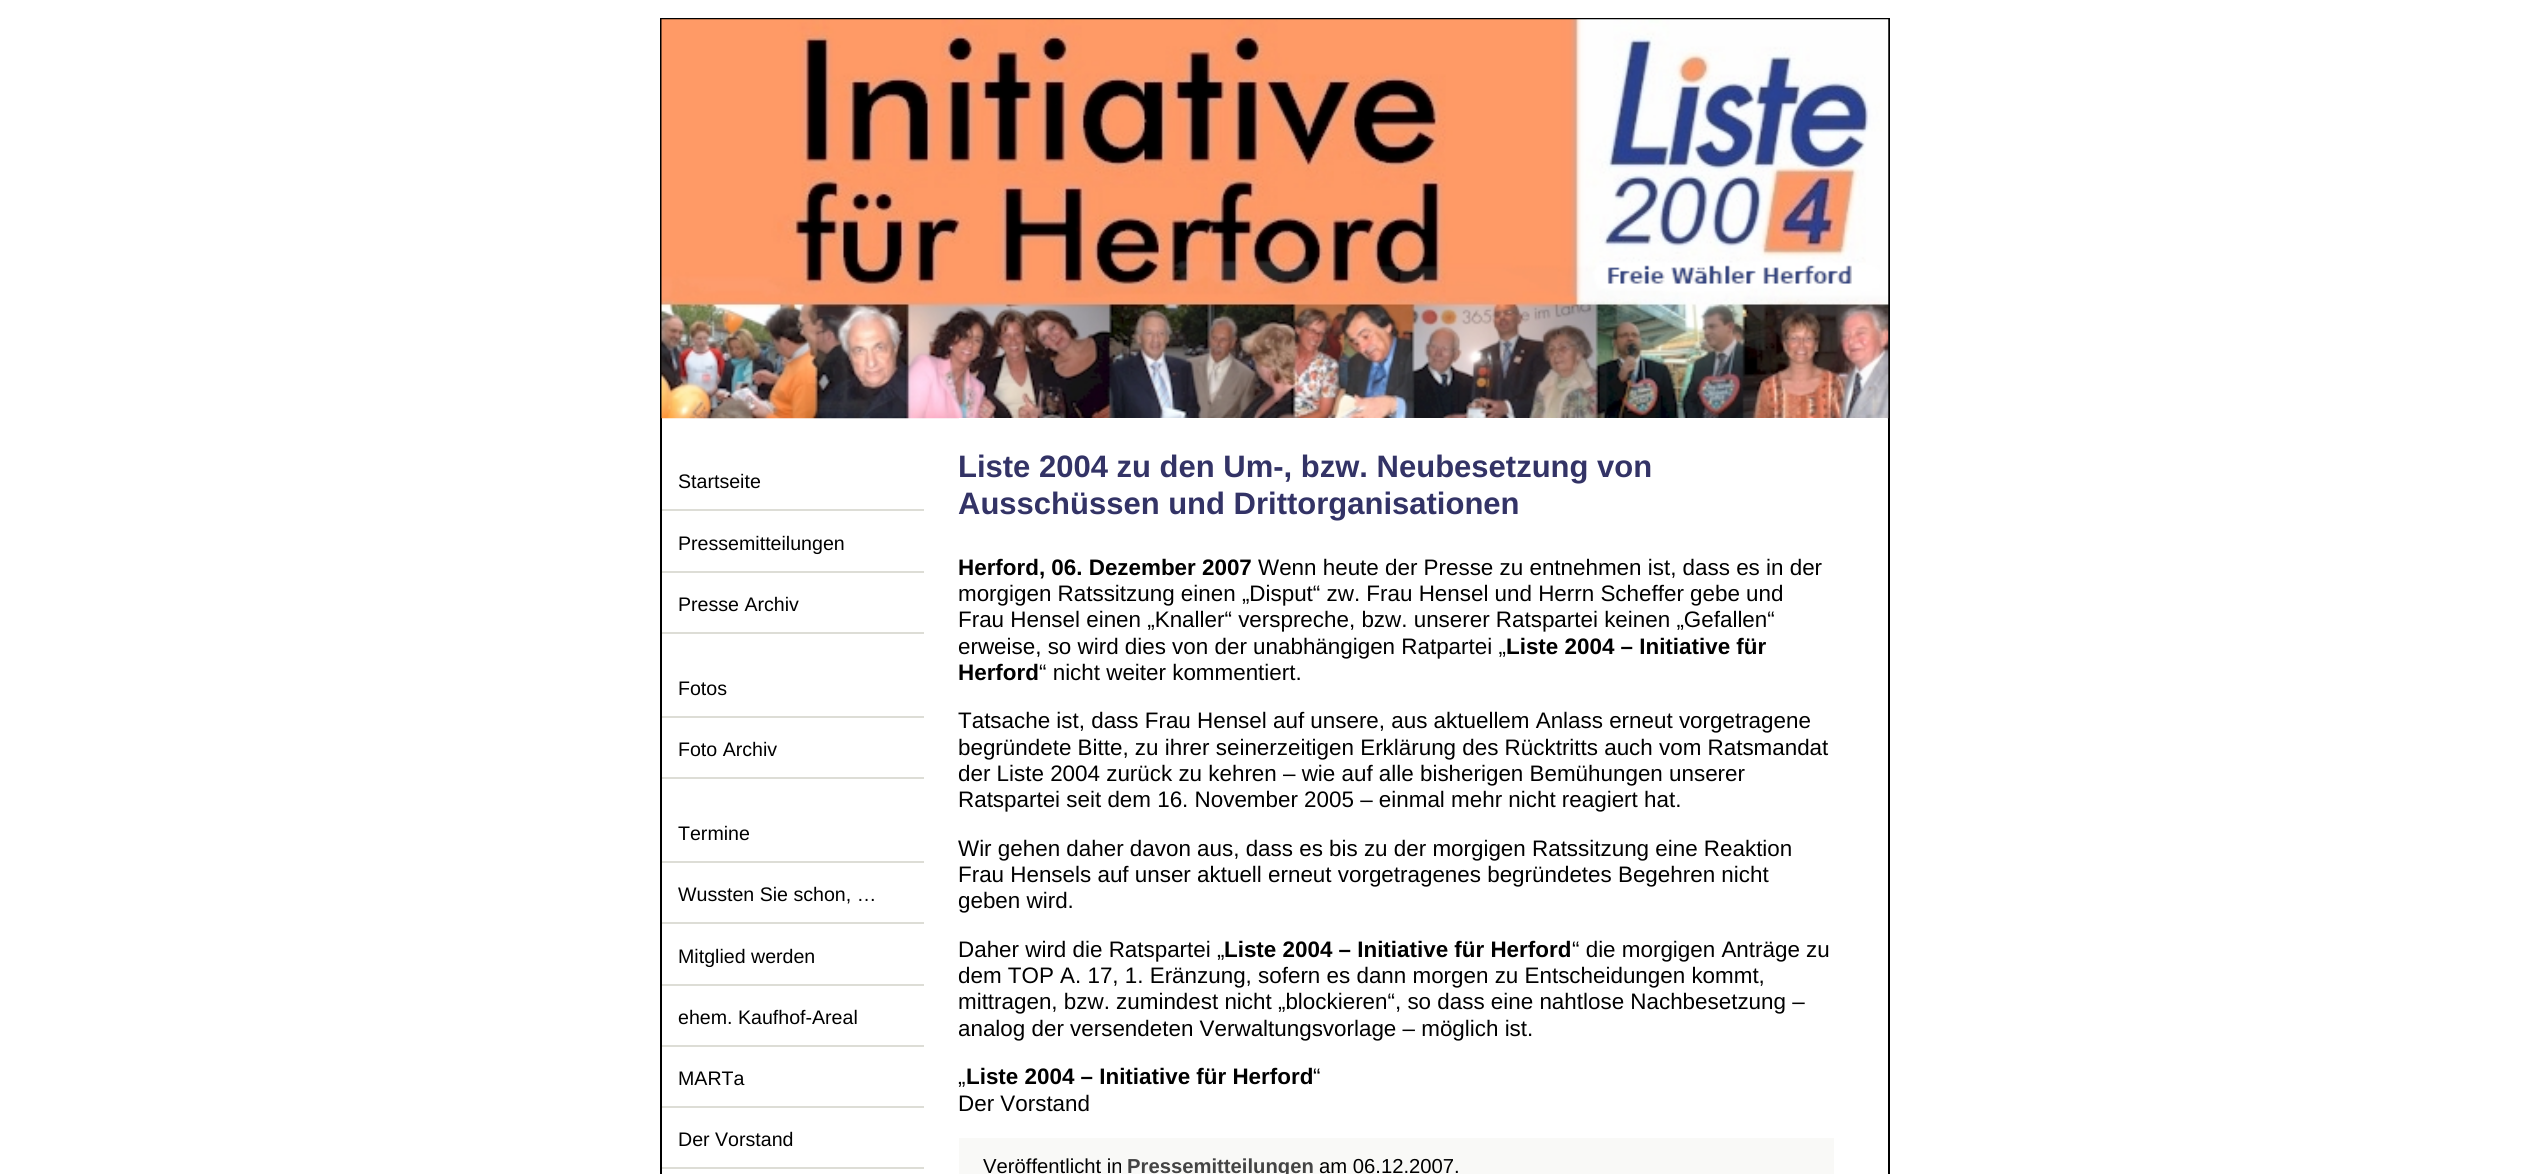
import math
import cairocffi as cairo

surface = cairo.ImageSurface(cairo.FORMAT_RGB24, 2548, 1174)
cr = cairo.Context(surface)
options = cairo.FontOptions()
options.set_hint_metrics(cairo.HINT_METRICS_OFF)
options.set_hint_style(cairo.HINT_STYLE_NONE)
cr.set_font_options(options)
cr.set_miter_limit(4)


def use_color(code):
    cr.set_source_rgb(*(v / 255 for v in bytes.fromhex(code[-6:])))


def picture(path, x, y, w, h):
    cr.save()
    cr.set_source_surface(cairo.ImageSurface.create_from_png(path), x, y)
    cr.rectangle(x, y, w, h)
    cr.fill()
    cr.restore()


use_color("#ffffff")
cr.paint()
cr.rectangle(661, 19, 1228, 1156)
use_color("#000000")
cr.stroke()
picture("img1.png", 661, 19, 1228, 400)
use_color("#ddddd6")
cr.rectangle(662, 509, 262, 2)
cr.fill()
cr.select_font_face("Liberation Sans")
cr.set_font_size(19.6)
use_color("#000000")
cr.move_to(678, 488)
cr.show_text("Startseite")
use_color("#ddddd6")
cr.rectangle(662, 571, 262, 2)
cr.fill()
use_color("#000000")
cr.move_to(678, 550)
cr.show_text("Pressemitteilungen")
use_color("#ddddd6")
cr.rectangle(662, 632, 262, 2)
cr.fill()
use_color("#000000")
cr.move_to(678, 611)
cr.show_text("Presse Archiv")
use_color("#ddddd6")
cr.rectangle(662, 716, 262, 2)
cr.fill()
use_color("#000000")
cr.move_to(678, 695)
cr.show_text("Fotos")
use_color("#ddddd6")
cr.rectangle(662, 777, 262, 2)
cr.fill()
use_color("#000000")
cr.move_to(678, 756)
cr.show_text("Foto Archiv")
use_color("#ddddd6")
cr.rectangle(662, 861, 262, 2)
cr.fill()
use_color("#000000")
cr.move_to(678, 840)
cr.show_text("Termine")
use_color("#ddddd6")
cr.rectangle(662, 922, 262, 2)
cr.fill()
use_color("#000000")
cr.move_to(678, 901)
cr.show_text("Wussten Sie schon, …")
use_color("#ddddd6")
cr.rectangle(662, 984, 262, 2)
cr.fill()
use_color("#000000")
cr.move_to(678, 963)
cr.show_text("Mitglied werden")
use_color("#ddddd6")
cr.rectangle(662, 1045, 262, 2)
cr.fill()
use_color("#000000")
cr.move_to(678, 1024)
cr.show_text("ehem. Kaufhof-Areal")
use_color("#ddddd6")
cr.rectangle(662, 1106, 262, 2)
cr.fill()
use_color("#000000")
cr.move_to(678, 1085)
cr.show_text("MARTa")
use_color("#ddddd6")
cr.rectangle(662, 1167, 262, 2)
cr.fill()
use_color("#000000")
cr.move_to(678, 1146)
cr.show_text("Der Vorstand")
use_color("#ffffff")
cr.rectangle(959, 418, 928, 1)
cr.fill()
cr.select_font_face("Liberation Sans", cairo.FONT_SLANT_NORMAL, cairo.FONT_WEIGHT_BOLD)
cr.set_font_size(31)
use_color("#333366")
cr.move_to(958, 477)
cr.show_text("Liste 2004 zu den Um-, bzw. Neubesetzung von")
cr.move_to(958, 514)
cr.show_text("Ausschüssen und Drittorganisationen")
cr.set_font_size(22.4)
use_color("#000000")
cr.move_to(958, 575)
cr.show_text("Herford, 06. Dezember 2007")
cr.select_font_face("Liberation Sans")
cr.move_to(1258, 575)
cr.show_text("Wenn heute der Presse zu entnehmen ist, dass es in der")
cr.move_to(958, 601)
cr.show_text("morgigen Ratssitzung einen „Disput“ zw. Frau Hensel und Herrn Scheffer gebe und")
cr.move_to(958, 627)
cr.show_text("Frau Hensel einen „Knaller“ verspreche, bzw. unserer Ratspartei keinen „Gefallen“")
cr.move_to(958, 654)
cr.show_text("erweise, so wird dies von der unabhängigen Ratpartei „")
cr.select_font_face("Liberation Sans", cairo.FONT_SLANT_NORMAL, cairo.FONT_WEIGHT_BOLD)
cr.move_to(1506, 654)
cr.show_text("Liste 2004 – Initiative für")
cr.move_to(958, 680)
cr.show_text("Herford")
cr.select_font_face("Liberation Sans")
cr.move_to(1039, 680)
cr.show_text("“ nicht weiter kommentiert.")
cr.move_to(958, 728)
cr.show_text("Tatsache ist, dass Frau Hensel auf unsere, aus aktuellem Anlass erneut vorgetragene")
cr.move_to(958, 755)
cr.show_text("begründete Bitte, zu ihrer seinerzeitigen Erklärung des Rücktritts auch vom Ratsmandat")
cr.move_to(958, 781)
cr.show_text("der Liste 2004 zurück zu kehren – wie auf alle bisherigen Bemühungen unserer")
cr.move_to(958, 807)
cr.show_text("Ratspartei seit dem 16. November 2005 – einmal mehr nicht reagiert hat.")
cr.move_to(958, 856)
cr.show_text("Wir gehen daher davon aus, dass es bis zu der morgigen Ratssitzung eine Reaktion")
cr.move_to(958, 882)
cr.show_text("Frau Hensels auf unser aktuell erneut vorgetragenes begründetes Begehren nicht")
cr.move_to(958, 908)
cr.show_text("geben wird.")
cr.move_to(958, 957)
cr.show_text("Daher wird die Ratspartei „")
cr.select_font_face("Liberation Sans", cairo.FONT_SLANT_NORMAL, cairo.FONT_WEIGHT_BOLD)
cr.move_to(1224, 957)
cr.show_text("Liste 2004 – Initiative für Herford")
cr.select_font_face("Liberation Sans")
cr.move_to(1572, 957)
cr.show_text("“ die morgigen Anträge zu")
cr.move_to(958, 983)
cr.show_text("dem TOP A. 17, 1. Eränzung, sofern es dann morgen zu Entscheidungen kommt,")
cr.move_to(958, 1009)
cr.show_text("mittragen, bzw. zumindest nicht „blockieren“, so dass eine nahtlose Nachbesetzung –")
cr.move_to(958, 1036)
cr.show_text("analog der versendeten Verwaltungsvorlage – möglich ist.")
cr.select_font_face("Liberation Sans", cairo.FONT_SLANT_NORMAL, cairo.FONT_WEIGHT_BOLD)
cr.move_to(966, 1084)
cr.show_text("Liste 2004 – Initiative für Herford")
cr.select_font_face("Liberation Sans")
cr.move_to(1313, 1084)
cr.show_text("“")
cr.move_to(958, 1084)
cr.show_text("„")
cr.move_to(958, 1111)
cr.show_text("Der Vorstand")
use_color("#f9f9f7")
cr.rectangle(959, 1138, 875, 36)
cr.fill()
cr.set_font_size(20.25)
use_color("#000000")
cr.move_to(983, 1173)
cr.show_text("Veröffentlicht in")
cr.select_font_face("Liberation Sans", cairo.FONT_SLANT_NORMAL, cairo.FONT_WEIGHT_BOLD)
use_color("#444444")
cr.move_to(1127, 1173)
cr.show_text("Pressemitteilungen")
cr.select_font_face("Liberation Sans")
use_color("#000000")
cr.move_to(1319, 1173)
cr.show_text("am 06.12.2007.")
surface.write_to_png("result.png")
